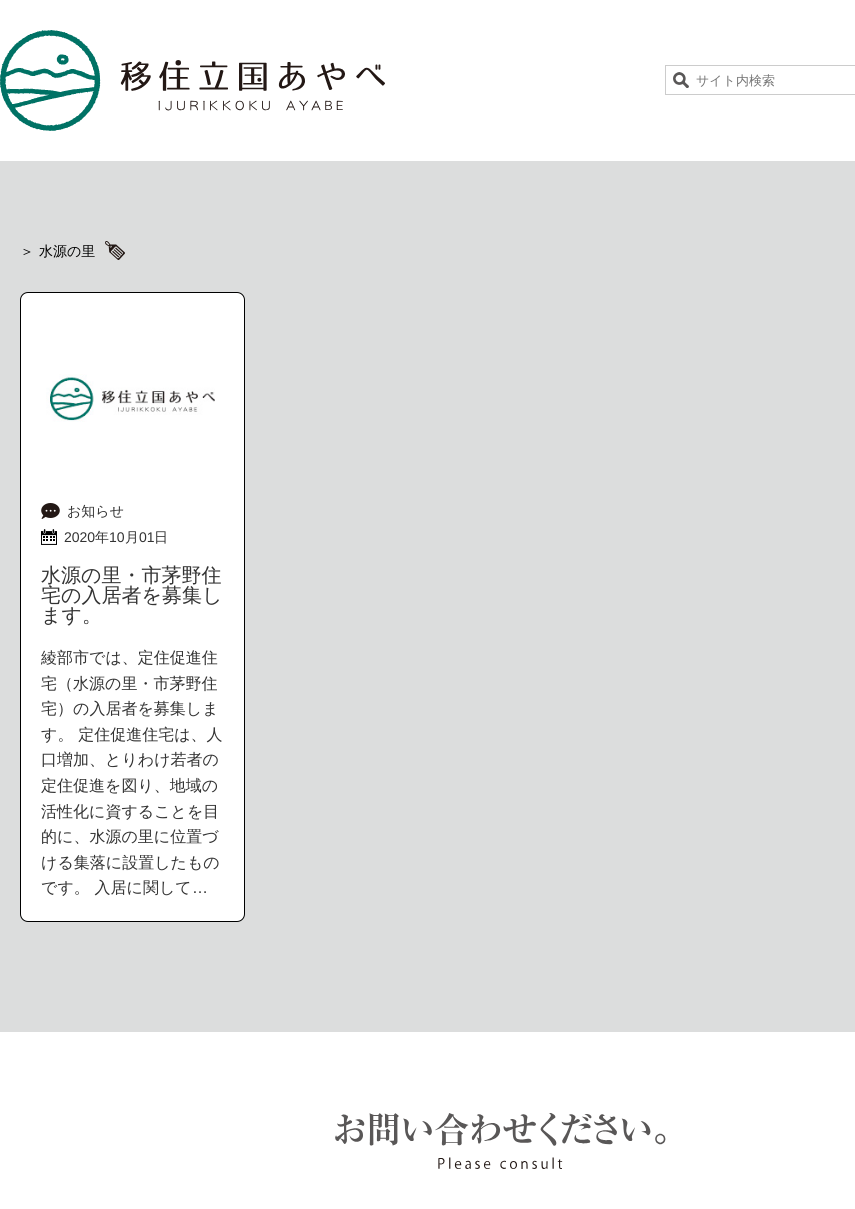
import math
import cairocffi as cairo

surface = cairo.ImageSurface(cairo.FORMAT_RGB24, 855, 1209)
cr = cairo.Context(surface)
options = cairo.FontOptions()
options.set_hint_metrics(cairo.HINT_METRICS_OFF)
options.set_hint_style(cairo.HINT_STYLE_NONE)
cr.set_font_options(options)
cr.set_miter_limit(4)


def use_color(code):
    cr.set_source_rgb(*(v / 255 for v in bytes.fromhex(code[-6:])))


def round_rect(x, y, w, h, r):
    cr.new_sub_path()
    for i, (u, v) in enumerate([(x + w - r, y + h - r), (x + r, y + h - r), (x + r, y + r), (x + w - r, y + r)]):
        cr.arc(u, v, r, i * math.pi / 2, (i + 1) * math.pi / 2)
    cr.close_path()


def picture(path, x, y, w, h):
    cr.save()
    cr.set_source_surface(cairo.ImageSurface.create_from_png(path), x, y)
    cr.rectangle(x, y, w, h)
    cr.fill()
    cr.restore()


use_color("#ffffff")
cr.paint()
picture("img1.png", 0, 30, 385, 101)
picture("img2.png", 673, 72, 16, 16)
cr.rectangle(665.5, 65.5, 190, 29)
use_color("#cccccc")
cr.set_line_width(1)
cr.stroke()
cr.select_font_face("WenQuanYi Zen Hei Medium")
cr.set_font_size(13)
use_color("#757575")
cr.move_to(696, 85)
cr.show_text("サイト内検索")
use_color("#dcdddd")
cr.rectangle(0, 161, 855, 871)
cr.fill()
cr.set_font_size(14)
use_color("#000000")
cr.move_to(20, 256)
cr.show_text("＞")
cr.move_to(39, 256)
cr.show_text("水源の里")
picture("img3.png", 105, 241, 20, 19)
use_color("#ffffff")
round_rect(20.5, 292.5, 224, 629, 7.5)
cr.fill_preserve()
use_color("#000000")
cr.stroke()
picture("img4.png", 46, 374, 169, 48)
picture("img5.png", 41, 503, 19, 16)
use_color("#333333")
cr.move_to(67, 516)
cr.show_text("お知らせ")
picture("img6.png", 41, 529, 16, 16)
cr.select_font_face("Liberation Sans")
cr.move_to(64, 542)
cr.show_text("2020")
cr.select_font_face("WenQuanYi Zen Hei Medium")
cr.move_to(95, 542)
cr.show_text("年")
cr.select_font_face("Liberation Sans")
cr.move_to(109, 542)
cr.show_text("10")
cr.select_font_face("WenQuanYi Zen Hei Medium")
cr.move_to(125, 542)
cr.show_text("月")
cr.select_font_face("Liberation Sans")
cr.move_to(139, 542)
cr.show_text("01")
cr.select_font_face("WenQuanYi Zen Hei Medium")
cr.move_to(154, 542)
cr.show_text("日")
cr.set_font_size(20)
cr.move_to(41, 582)
cr.show_text("水源の里・市茅野住")
cr.move_to(41, 602)
cr.show_text("宅の入居者を募集し")
cr.move_to(41, 622)
cr.show_text("ます。")
cr.set_font_size(16)
cr.move_to(41, 663)
cr.show_text("綾部市では、定住促進住")
cr.move_to(41, 689)
cr.show_text("宅（水源の里・市茅野住")
cr.move_to(41, 714)
cr.show_text("宅）の入居者を募集しま")
cr.move_to(41, 740)
cr.show_text("す。 定住促進住宅は、人")
cr.move_to(41, 765)
cr.show_text("口増加、とりわけ若者の")
cr.move_to(41, 791)
cr.show_text("定住促進を図り、地域の")
cr.move_to(41, 817)
cr.show_text("活性化に資することを目")
cr.move_to(41, 842)
cr.show_text("的に、水源の里に位置づ")
cr.move_to(41, 868)
cr.show_text("ける集落に設置したもの")
cr.move_to(41, 893)
cr.show_text("です。 入居に関して")
cr.select_font_face("Liberation Sans")
cr.move_to(192, 893)
cr.show_text("…")
picture("img7.png", 335, 1113, 331, 56)
surface.write_to_png("result.png")
